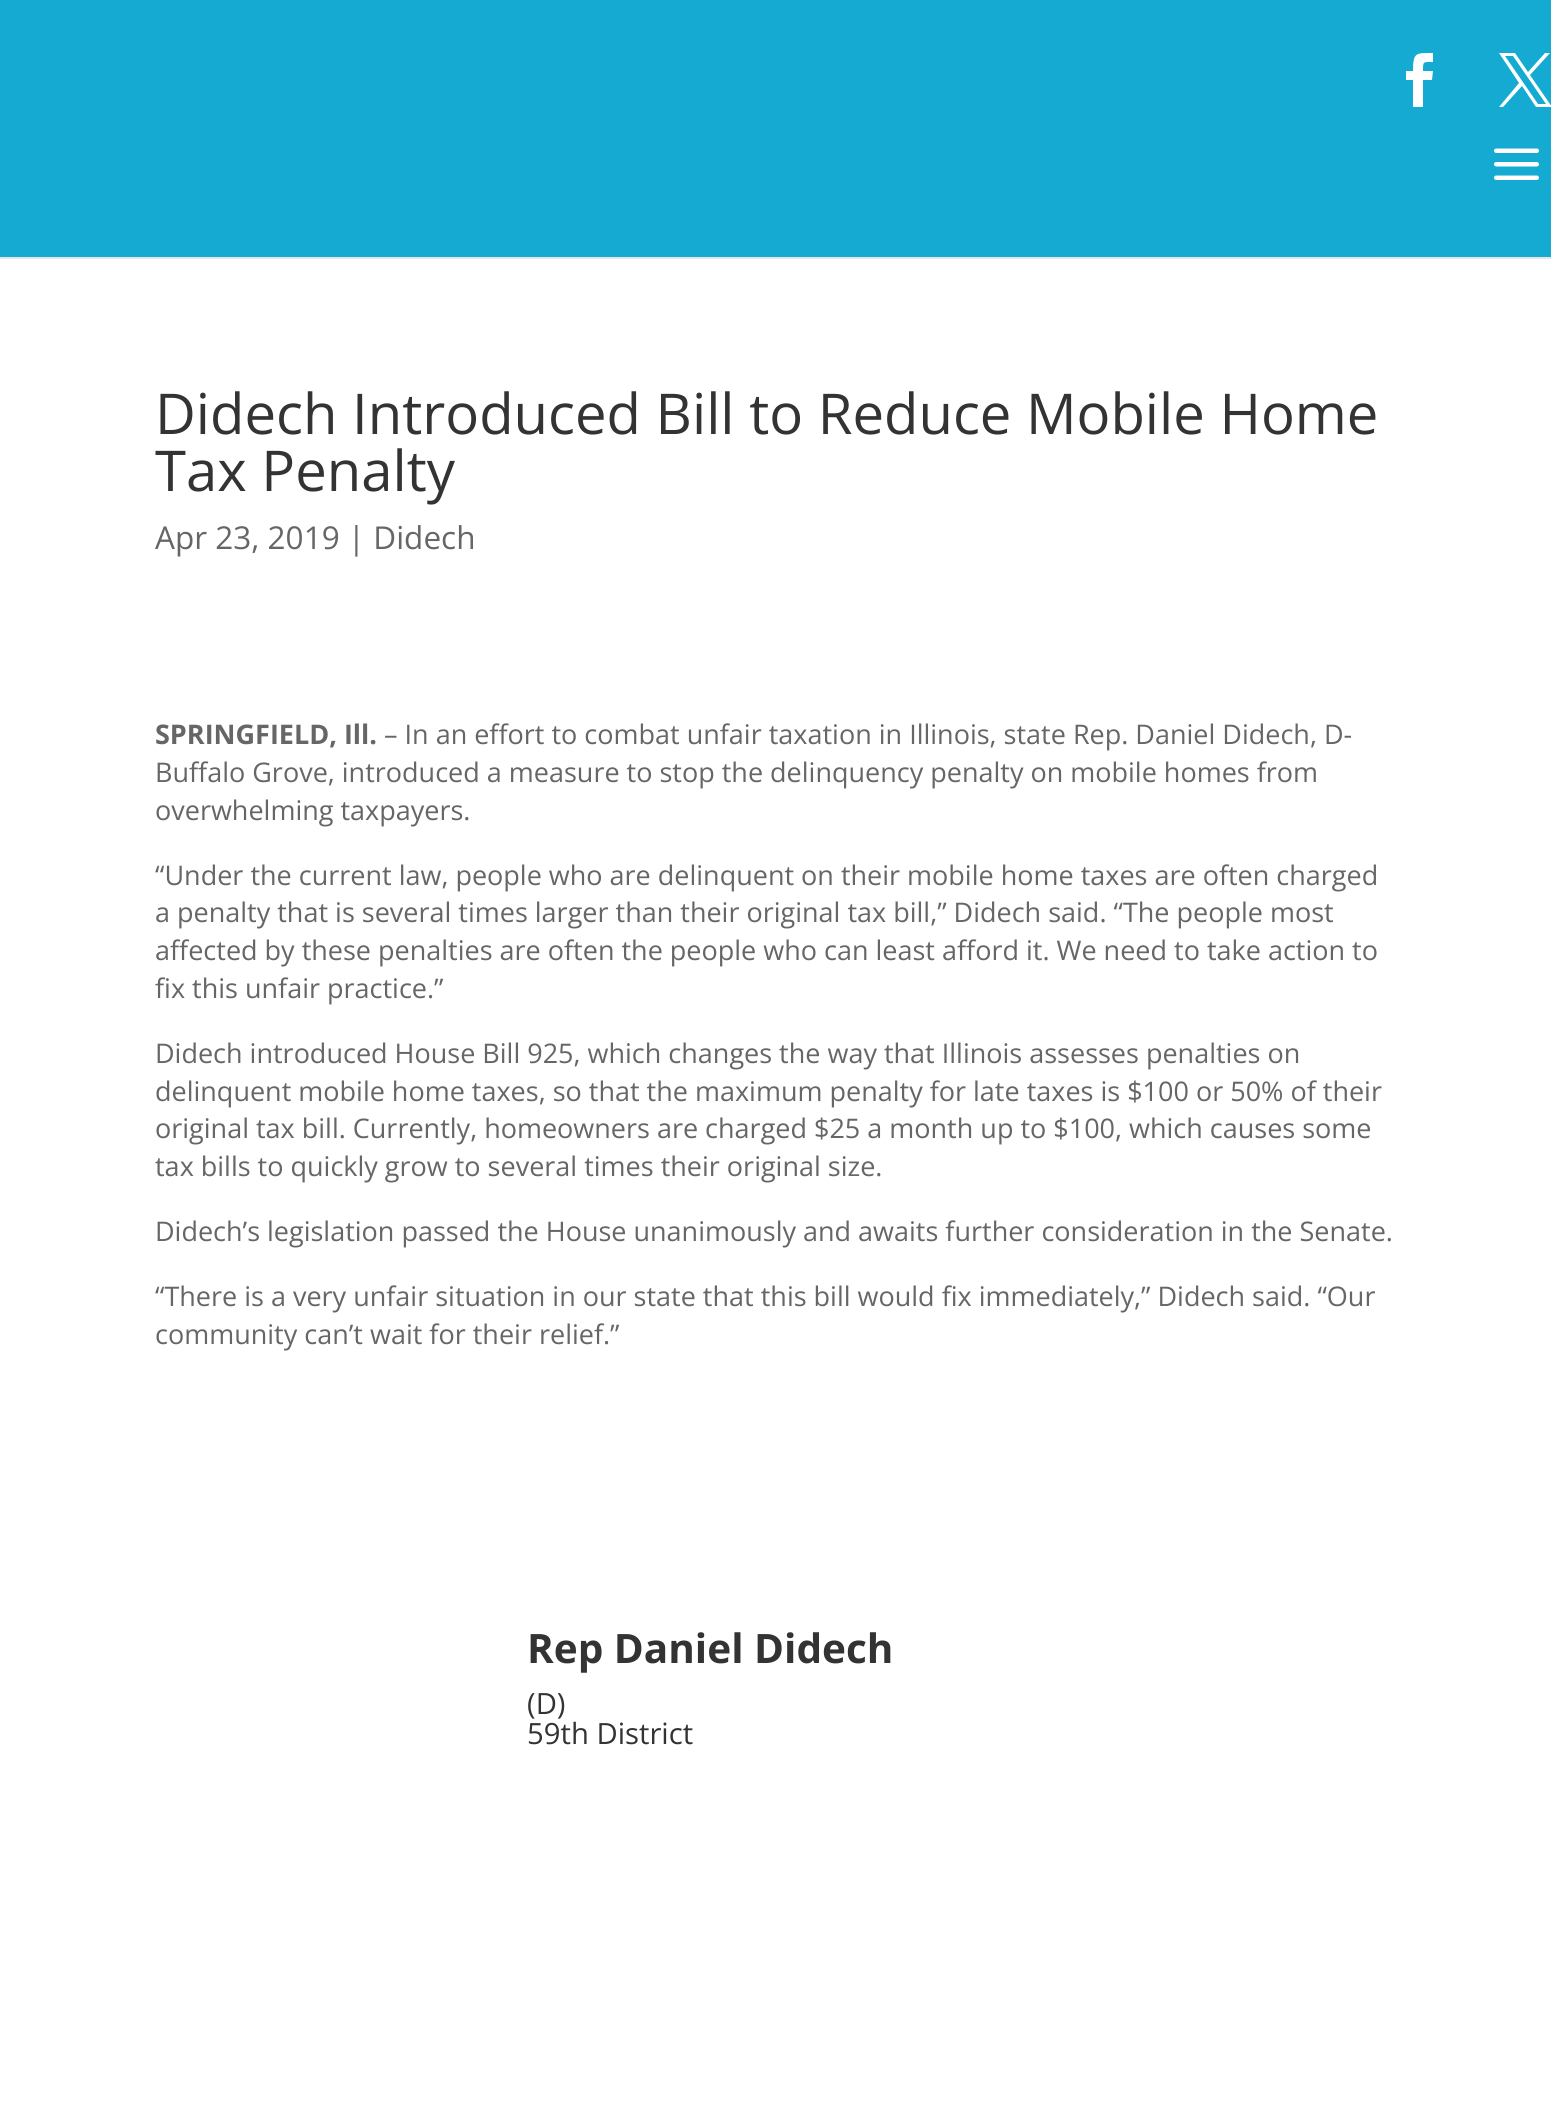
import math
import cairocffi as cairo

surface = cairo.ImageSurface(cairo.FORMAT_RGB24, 1551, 2128)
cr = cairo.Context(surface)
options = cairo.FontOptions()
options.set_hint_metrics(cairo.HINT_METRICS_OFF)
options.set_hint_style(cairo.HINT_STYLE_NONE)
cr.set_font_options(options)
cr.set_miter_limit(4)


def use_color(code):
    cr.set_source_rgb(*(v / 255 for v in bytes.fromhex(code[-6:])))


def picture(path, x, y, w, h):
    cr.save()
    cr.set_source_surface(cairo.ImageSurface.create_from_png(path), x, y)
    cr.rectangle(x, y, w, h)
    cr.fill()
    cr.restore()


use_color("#ffffff")
cr.paint()
use_color("#e6e6e6")
cr.new_path()
cr.move_to(0, 256)
cr.line_to(0, 259)
cr.line_to(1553, 259)
cr.line_to(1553, 2)
cr.line_to(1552, 2)
cr.line_to(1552, 256)
cr.close_path()
cr.fill()
use_color("#14aad2")
cr.rectangle(0, 0, 1551, 257)
cr.fill()
use_color("#ffffff")
cr.new_path()
cr.move_to(1413, 107)
cr.line_to(1423, 107)
cr.line_to(1423, 80)
cr.line_to(1432, 80)
cr.line_to(1433, 71)
cr.line_to(1423, 71)
cr.curve_to(1423, 61, 1423, 62, 1433, 62)
cr.line_to(1433, 53)
cr.curve_to(1416, 53, 1413, 52, 1413, 71)
cr.line_to(1406, 71)
cr.line_to(1406, 80)
cr.line_to(1413, 80)
cr.close_path()
cr.fill()
cr.new_path()
cr.move_to(1499, 53)
cr.line_to(1519, 83)
cr.line_to(1499, 107)
cr.line_to(1503, 107)
cr.line_to(1522, 86)
cr.line_to(1536, 107)
cr.line_to(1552, 107)
cr.line_to(1530, 75)
cr.line_to(1550, 53)
cr.line_to(1545, 53)
cr.line_to(1528, 72)
cr.line_to(1515, 53)
cr.close_path()
cr.move_to(1505, 56)
cr.line_to(1513, 56)
cr.line_to(1546, 104)
cr.line_to(1538, 104)
cr.close_path()
cr.fill()
picture("img1.png", 1494, 148, 45, 32)
cr.select_font_face("Open Sans")
cr.set_font_size(56.25)
use_color("#333333")
cr.move_to(155, 434)
cr.show_text("Didech Introduced Bill to Reduce Mobile Home")
cr.move_to(155, 491)
cr.show_text("Tax Penalty")
cr.set_font_size(31.5)
use_color("#666666")
cr.move_to(155, 549)
cr.show_text("Apr 23, 2019 | Didech")
cr.select_font_face("Open Sans", cairo.FONT_SLANT_NORMAL, cairo.FONT_WEIGHT_BOLD)
cr.set_font_size(27)
cr.move_to(155, 744)
cr.show_text("SPRINGFIELD, Ill.")
cr.select_font_face("Open Sans")
cr.move_to(384, 744)
cr.show_text("– In an effort to combat unfair taxation in Illinois, state Rep. Daniel Didech, D-")
cr.move_to(155, 782)
cr.show_text("Buffalo Grove, introduced a measure to stop the delinquency penalty on mobile homes from")
cr.move_to(155, 820)
cr.show_text("overwhelming taxpayers.")
cr.move_to(155, 885)
cr.show_text("“Under the current law, people who are delinquent on their mobile home taxes are often charged")
cr.move_to(155, 922)
cr.show_text("a penalty that is several times larger than their original tax bill,” Didech said. “The people most")
cr.move_to(155, 960)
cr.show_text("affected by these penalties are often the people who can least afford it. We need to take action to")
cr.move_to(155, 998)
cr.show_text("fix this unfair practice.”")
cr.move_to(155, 1063)
cr.show_text("Didech introduced House Bill 925, which changes the way that Illinois assesses penalties on")
cr.move_to(155, 1101)
cr.show_text("delinquent mobile home taxes, so that the maximum penalty for late taxes is $100 or 50% of their")
cr.move_to(155, 1138)
cr.show_text("original tax bill. Currently, homeowners are charged $25 a month up to $100, which causes some")
cr.move_to(155, 1176)
cr.show_text("tax bills to quickly grow to several times their original size.")
cr.move_to(155, 1241)
cr.show_text("Didech’s legislation passed the House unanimously and awaits further consideration in the Senate.")
cr.move_to(155, 1306)
cr.show_text("“There is a very unfair situation in our state that this bill would fix immediately,” Didech said. “Our")
cr.move_to(155, 1344)
cr.show_text("community can’t wait for their relief.”")
cr.select_font_face("Open Sans", cairo.FONT_SLANT_NORMAL, cairo.FONT_WEIGHT_BOLD)
cr.set_font_size(40.5)
use_color("#333333")
cr.move_to(527, 1663)
cr.show_text("Rep Daniel Didech")
cr.select_font_face("Open Sans")
cr.set_font_size(29.25)
cr.move_to(527, 1714)
cr.show_text("(D)")
cr.move_to(527, 1744)
cr.show_text("59th District")
surface.write_to_png("result.png")
